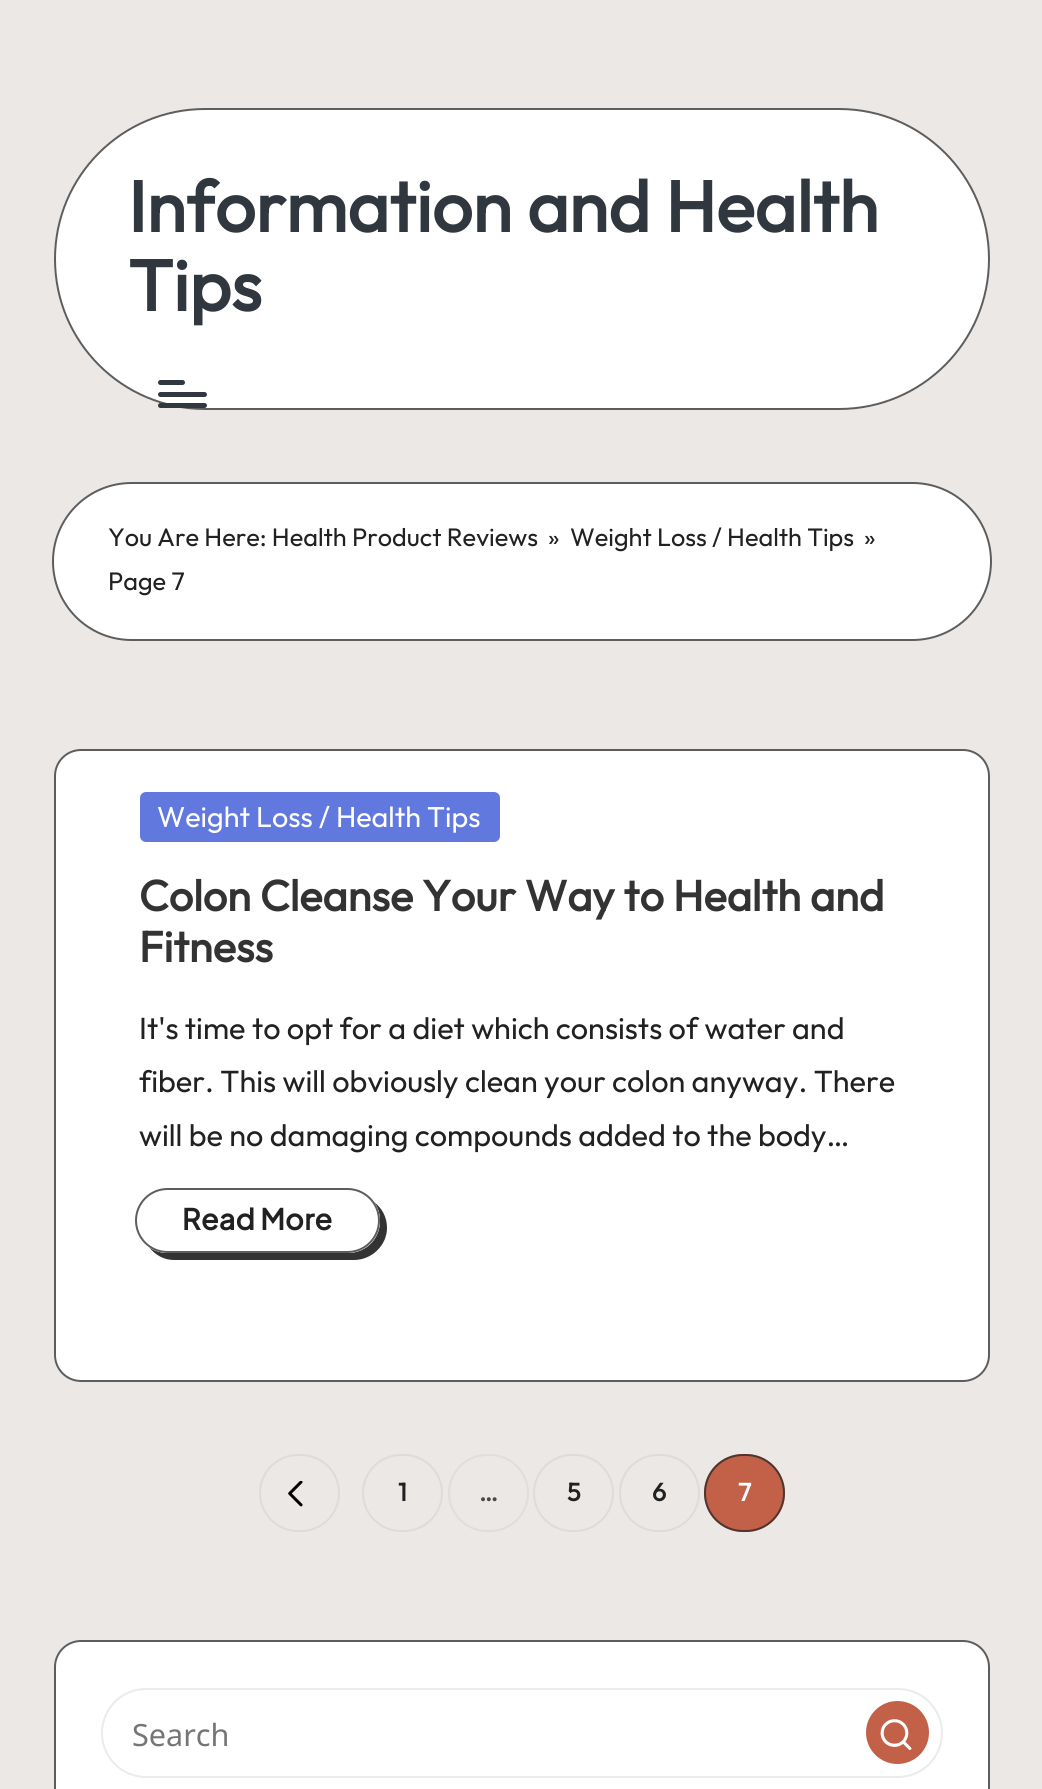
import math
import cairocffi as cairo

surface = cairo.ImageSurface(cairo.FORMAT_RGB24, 1042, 1789)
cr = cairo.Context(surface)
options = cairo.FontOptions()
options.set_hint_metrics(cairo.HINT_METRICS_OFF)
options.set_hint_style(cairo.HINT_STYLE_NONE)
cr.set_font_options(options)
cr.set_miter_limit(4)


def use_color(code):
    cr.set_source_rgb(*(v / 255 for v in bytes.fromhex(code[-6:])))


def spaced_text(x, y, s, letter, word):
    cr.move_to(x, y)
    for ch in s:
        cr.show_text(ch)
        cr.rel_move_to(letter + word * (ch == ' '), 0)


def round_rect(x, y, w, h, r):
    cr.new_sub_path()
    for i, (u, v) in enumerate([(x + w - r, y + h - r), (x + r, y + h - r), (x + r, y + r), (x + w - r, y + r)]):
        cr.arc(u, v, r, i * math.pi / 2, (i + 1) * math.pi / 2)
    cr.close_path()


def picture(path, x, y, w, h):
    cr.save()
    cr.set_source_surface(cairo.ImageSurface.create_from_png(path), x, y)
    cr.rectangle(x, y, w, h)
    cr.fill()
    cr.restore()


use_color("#ebe8e6")
cr.paint()
use_color("#ffffff")
round_rect(54, 108, 936, 302, 151)
cr.fill()
round_rect(55, 109, 934, 300, 150)
cr.set_source_rgba(0.153, 0.153, 0.153, 0.75)
cr.stroke()
cr.select_font_face("Outfit", cairo.FONT_SLANT_NORMAL, cairo.FONT_WEIGHT_BOLD)
cr.set_font_size(72)
use_color("#30373e")
cr.move_to(128, 232)
cr.show_text("Information and Health")
cr.move_to(128, 311)
cr.show_text("Tips")
round_rect(158, 392, 49, 5, 2.5)
cr.fill()
round_rect(158, 380, 27, 5, 2.5)
cr.fill()
round_rect(158, 403, 49, 5, 2.5)
cr.fill()
use_color("#ffffff")
round_rect(52, 482, 940, 159, 79.5)
cr.fill()
round_rect(53, 483, 938, 157, 78.5)
cr.set_source_rgba(0.153, 0.153, 0.153, 0.75)
cr.stroke()
cr.select_font_face("Outfit Thin")
cr.set_font_size(25.25)
use_color("#212121")
cr.move_to(108, 546)
cr.show_text("You Are Here: Health Product Reviews")
cr.move_to(548, 546)
cr.show_text("»")
cr.move_to(570, 546)
cr.show_text("Weight Loss / Health Tips")
cr.move_to(864, 546)
cr.show_text("»")
cr.move_to(108, 590)
cr.show_text("Page 7")
use_color("#ffffff")
round_rect(54, 749, 936, 633, 27)
cr.fill()
round_rect(55, 750, 934, 631, 26)
cr.set_source_rgba(0.153, 0.153, 0.153, 0.75)
cr.stroke()
use_color("#6178df")
round_rect(140, 792, 360, 50, 6)
cr.fill()
cr.set_font_size(28.75)
use_color("#ffffff")
cr.move_to(157, 827)
cr.show_text("Weight Loss / Health Tips")
cr.select_font_face("Outfit", cairo.FONT_SLANT_NORMAL, cairo.FONT_WEIGHT_BOLD)
cr.set_font_size(43.25)
use_color("#333333")
cr.move_to(139, 911)
cr.show_text("Colon Cleanse Your Way to Health and")
cr.move_to(139, 962)
cr.show_text("Fitness")
cr.select_font_face("Outfit Thin")
cr.set_font_size(30.6)
use_color("#212121")
cr.move_to(139, 1039)
cr.show_text("It's time to opt for a diet which consists of water and")
cr.move_to(139, 1092)
cr.show_text("fiber. This will obviously clean your colon anyway. There")
cr.move_to(139, 1146)
cr.show_text("will be no damaging compounds added to the body…")
use_color("#333333")
cr.new_path()
cr.move_to(149, 1247)
cr.curve_to(155, 1255, 164, 1260, 174, 1260)
cr.line_to(354, 1260)
cr.curve_to(372, 1260, 387, 1245, 387, 1228)
cr.curve_to(387, 1217, 382, 1208, 374, 1202)
cr.curve_to(378, 1207, 380, 1214, 380, 1221)
cr.curve_to(380, 1239, 366, 1253, 348, 1253)
cr.line_to(168, 1253)
cr.curve_to(161, 1253, 154, 1251, 149, 1247)
cr.close_path()
cr.fill()
use_color("#ffffff")
round_rect(135, 1188, 245, 65, 32.5)
cr.fill()
round_rect(136, 1189, 243, 63, 31.5)
cr.set_source_rgba(0.153, 0.153, 0.153, 0.75)
cr.stroke()
cr.select_font_face("Plus Jakarta Sans", cairo.FONT_SLANT_NORMAL, cairo.FONT_WEIGHT_BOLD)
cr.set_font_size(28.75)
use_color("#212121")
spaced_text(182, 1230, "Read More", 0.25, 0)
round_rect(260, 1455, 79, 76, 38)
use_color("#dedbda")
cr.stroke()
picture("img1.png", 288, 1481, 15, 26)
round_rect(363, 1455, 79, 76, 38)
cr.stroke()
cr.select_font_face("Outfit", cairo.FONT_SLANT_NORMAL, cairo.FONT_WEIGHT_BOLD)
cr.set_font_size(25.25)
use_color("#212121")
cr.move_to(398, 1501)
cr.show_text("1")
round_rect(449, 1455, 79, 76, 38)
use_color("#e0dedc")
cr.stroke()
use_color("#494948")
cr.move_to(479, 1501)
cr.show_text("…")
round_rect(534, 1455, 79, 76, 38)
use_color("#dedbda")
cr.stroke()
use_color("#212121")
cr.move_to(567, 1501)
cr.show_text("5")
round_rect(620, 1455, 79, 76, 38)
use_color("#dedbda")
cr.stroke()
use_color("#212121")
cr.move_to(652, 1501)
cr.show_text("6")
use_color("#c26148")
round_rect(704, 1454, 81, 78, 39)
cr.fill()
round_rect(705, 1455, 79, 76, 38)
cr.set_source_rgba(0.153, 0.153, 0.153, 0.75)
cr.stroke()
use_color("#ffffff")
cr.move_to(738, 1501)
cr.show_text("7")
round_rect(54, 1640, 936, 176, 27)
cr.fill()
round_rect(55, 1641, 934, 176, 26)
cr.set_source_rgba(0.153, 0.153, 0.153, 0.75)
cr.stroke()
round_rect(102, 1689, 840, 88, 44)
use_color("#ebebeb")
cr.stroke()
cr.select_font_face("Noto Sans")
cr.set_font_size(30.6)
use_color("#757575")
cr.move_to(132, 1746)
cr.show_text("Search")
use_color("#c26148")
cr.new_path()
cr.arc(897.5, 1732.5, 31.5, 0, 2 * math.pi)
cr.fill()
picture("img2.png", 880, 1719, 32, 31)
surface.write_to_png("result.png")
